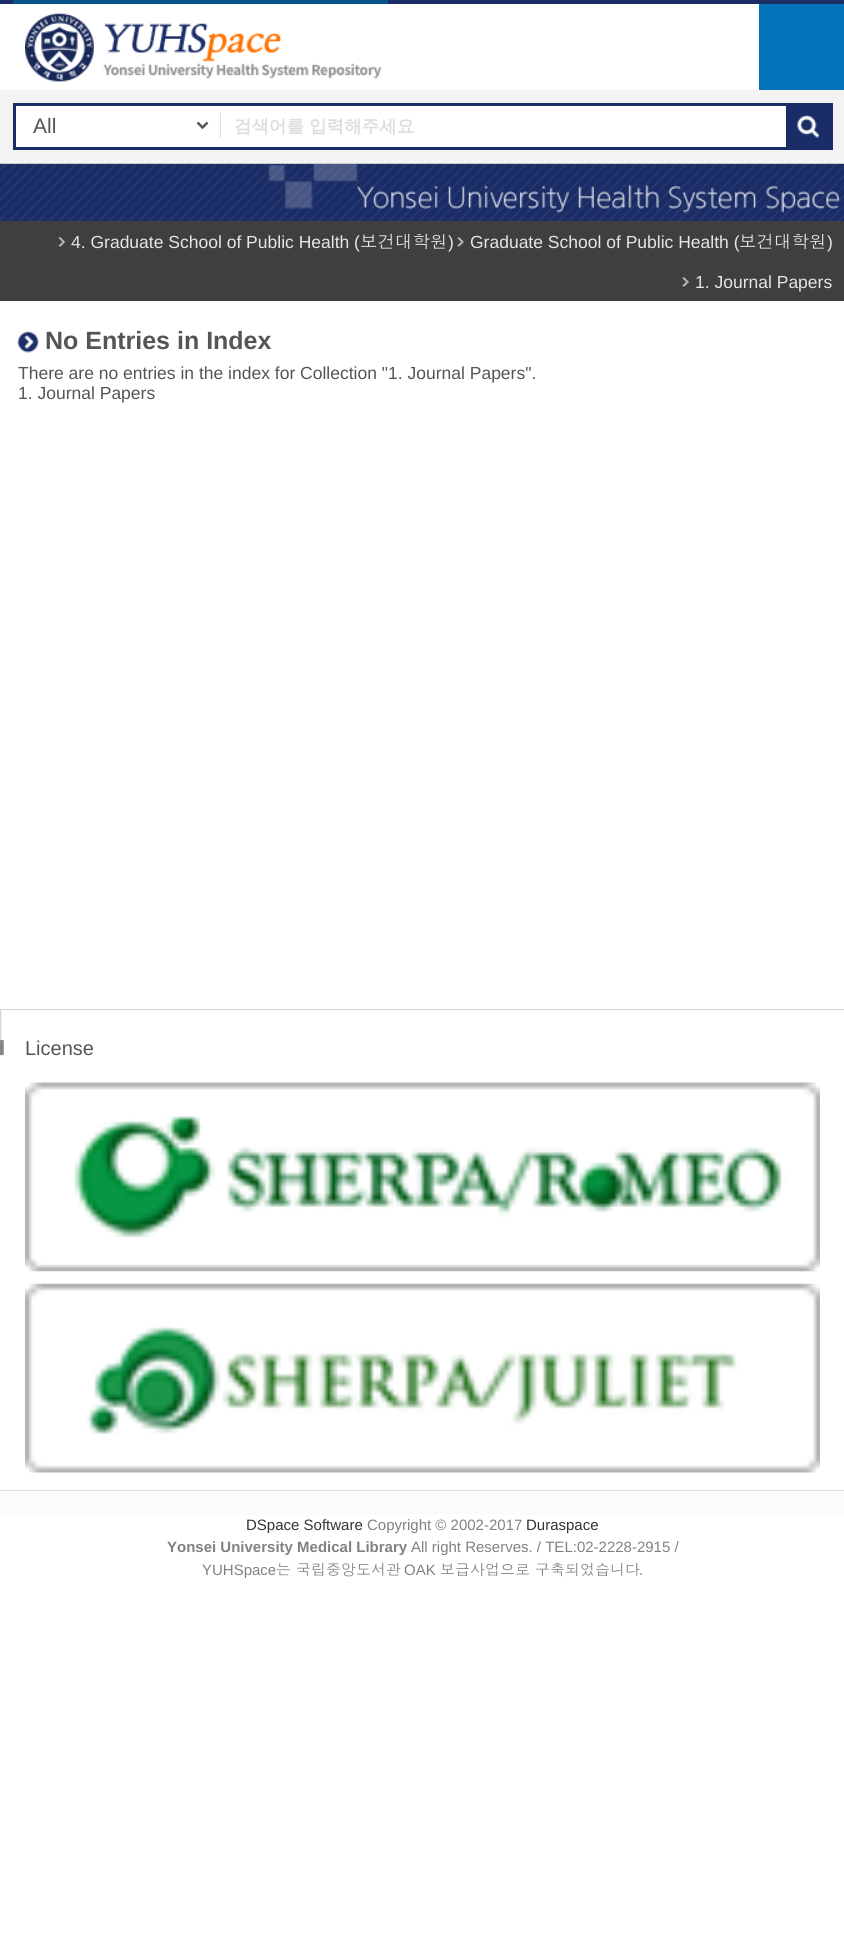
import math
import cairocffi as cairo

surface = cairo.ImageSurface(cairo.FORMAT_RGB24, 844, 1938)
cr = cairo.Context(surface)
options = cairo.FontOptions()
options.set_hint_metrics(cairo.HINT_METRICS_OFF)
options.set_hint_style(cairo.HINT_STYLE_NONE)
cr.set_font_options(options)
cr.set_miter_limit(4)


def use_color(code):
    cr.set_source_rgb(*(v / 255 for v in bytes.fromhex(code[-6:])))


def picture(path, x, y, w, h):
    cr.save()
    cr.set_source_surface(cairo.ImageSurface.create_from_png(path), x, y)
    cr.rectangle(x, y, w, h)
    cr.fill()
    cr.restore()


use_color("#ffffff")
cr.paint()
use_color("#1a2d67")
cr.rectangle(0, 164, 844, 57)
cr.fill()
picture("img1.png", 0, 164, 844, 57)
cr.rectangle(0, 0, 844, 4)
cr.fill()
use_color("#06528a")
cr.rectangle(13, 0, 375, 4)
cr.fill()
picture("img2.png", 25, 13, 357, 69)
use_color("#0373ba")
cr.rectangle(759, 4, 85, 86)
cr.fill()
use_color("#f3f3f3")
cr.rectangle(0, 90, 844, 73)
cr.fill()
use_color("#cccccc")
cr.rectangle(0, 163, 844, 1)
cr.fill()
use_color("#ffffff")
cr.rectangle(16, 106, 770, 41)
cr.fill()
cr.rectangle(14.5, 104.5, 817, 44)
use_color("#1a2d67")
cr.set_line_width(3)
cr.stroke()
use_color("#dddddd")
cr.rectangle(220, 113, 1, 25)
cr.fill()
cr.new_path()
cr.move_to(197.5, 122.5)
cr.line_to(202.5, 127.5)
cr.line_to(207.5, 122.5)
use_color("#555555")
cr.set_line_width(2.5)
cr.stroke()
cr.select_font_face("Liberation Sans")
cr.set_font_size(21)
cr.move_to(33, 133)
cr.show_text("All")
cr.select_font_face("WenQuanYi Zen Hei", cairo.FONT_SLANT_NORMAL, cairo.FONT_WEIGHT_BOLD)
cr.set_font_size(17.5)
use_color("#dddddd")
cr.move_to(234, 132)
cr.show_text("검색어를 입력해주세요")
use_color("#1a2d67")
cr.rectangle(786, 106, 44, 41)
cr.fill()
picture("img3.png", 797, 115, 23, 23)
picture("img4.png", 268, 164, 572, 49)
use_color("#3f3f3f")
cr.rectangle(0, 221, 844, 80)
cr.fill()
picture("img5.png", 58, 237, 7, 10)
cr.select_font_face("Liberation Sans")
use_color("#e6e6e6")
cr.move_to(71, 248)
cr.show_text("4. Graduate School of Public Health (")
cr.select_font_face("Dotum")
cr.move_to(360, 248)
cr.show_text("보건대학원")
cr.select_font_face("Liberation Sans")
cr.move_to(448, 248)
cr.show_text(")")
picture("img6.png", 457, 237, 7, 10)
cr.move_to(470, 248)
cr.show_text("Graduate School of Public Health (")
cr.select_font_face("Dotum")
cr.move_to(739, 248)
cr.show_text("보건대학원")
cr.select_font_face("Liberation Sans")
cr.move_to(827, 248)
cr.show_text(")")
picture("img6.png", 682, 277, 7, 10)
cr.move_to(695, 288)
cr.show_text("1. Journal Papers")
picture("img7.png", 17, 331, 22, 22)
cr.select_font_face("Liberation Sans", cairo.FONT_SLANT_NORMAL, cairo.FONT_WEIGHT_BOLD)
cr.set_font_size(25)
use_color("#555555")
cr.move_to(45, 349)
cr.show_text("No Entries in Index")
cr.select_font_face("Liberation Sans")
cr.set_font_size(17.5)
cr.move_to(18, 379)
cr.show_text("There are no entries in the index for Collection \"1. Journal Papers\".")
cr.move_to(18, 399)
cr.show_text("1. Journal Papers")
use_color("#d6d5d5")
cr.rectangle(0, 1009, 844, 1)
cr.fill()
picture("img8.png", 0, 1010, 4, 46)
cr.set_font_size(20)
use_color("#555555")
cr.move_to(25, 1055)
cr.show_text("License")
picture("img9.png", 25, 1082, 795, 190)
picture("img10.png", 25, 1283, 795, 190)
use_color("#fcfafa")
cr.rectangle(0, 1493, 844, 22)
cr.fill()
use_color("#dadada")
cr.rectangle(0, 1490, 844, 1)
cr.fill()
cr.set_font_size(15)
use_color("#333333")
cr.move_to(246, 1530)
cr.show_text("DSpace Software")
use_color("#818181")
cr.move_to(367, 1530)
cr.show_text("Copyright © 2002-2017")
use_color("#333333")
cr.move_to(526, 1530)
cr.show_text("Duraspace")
cr.select_font_face("Liberation Sans", cairo.FONT_SLANT_NORMAL, cairo.FONT_WEIGHT_BOLD)
use_color("#818181")
cr.move_to(167, 1552)
cr.show_text("Yonsei University Medical Library")
cr.select_font_face("Liberation Sans")
cr.move_to(411, 1552)
cr.show_text("All right Reserves. / TEL:02-2228-2915 /")
cr.move_to(202, 1575)
cr.show_text("YUHSpace")
cr.select_font_face("Dotum")
cr.move_to(276, 1575)
cr.show_text("는 국립중앙도서관")
cr.select_font_face("Liberation Sans")
cr.move_to(404, 1575)
cr.show_text("OAK")
cr.select_font_face("Dotum")
cr.move_to(440, 1575)
cr.show_text("보급사업으로 구축되었습니다")
cr.select_font_face("Liberation Sans")
cr.move_to(639, 1575)
cr.show_text(".")
surface.write_to_png("result.png")
